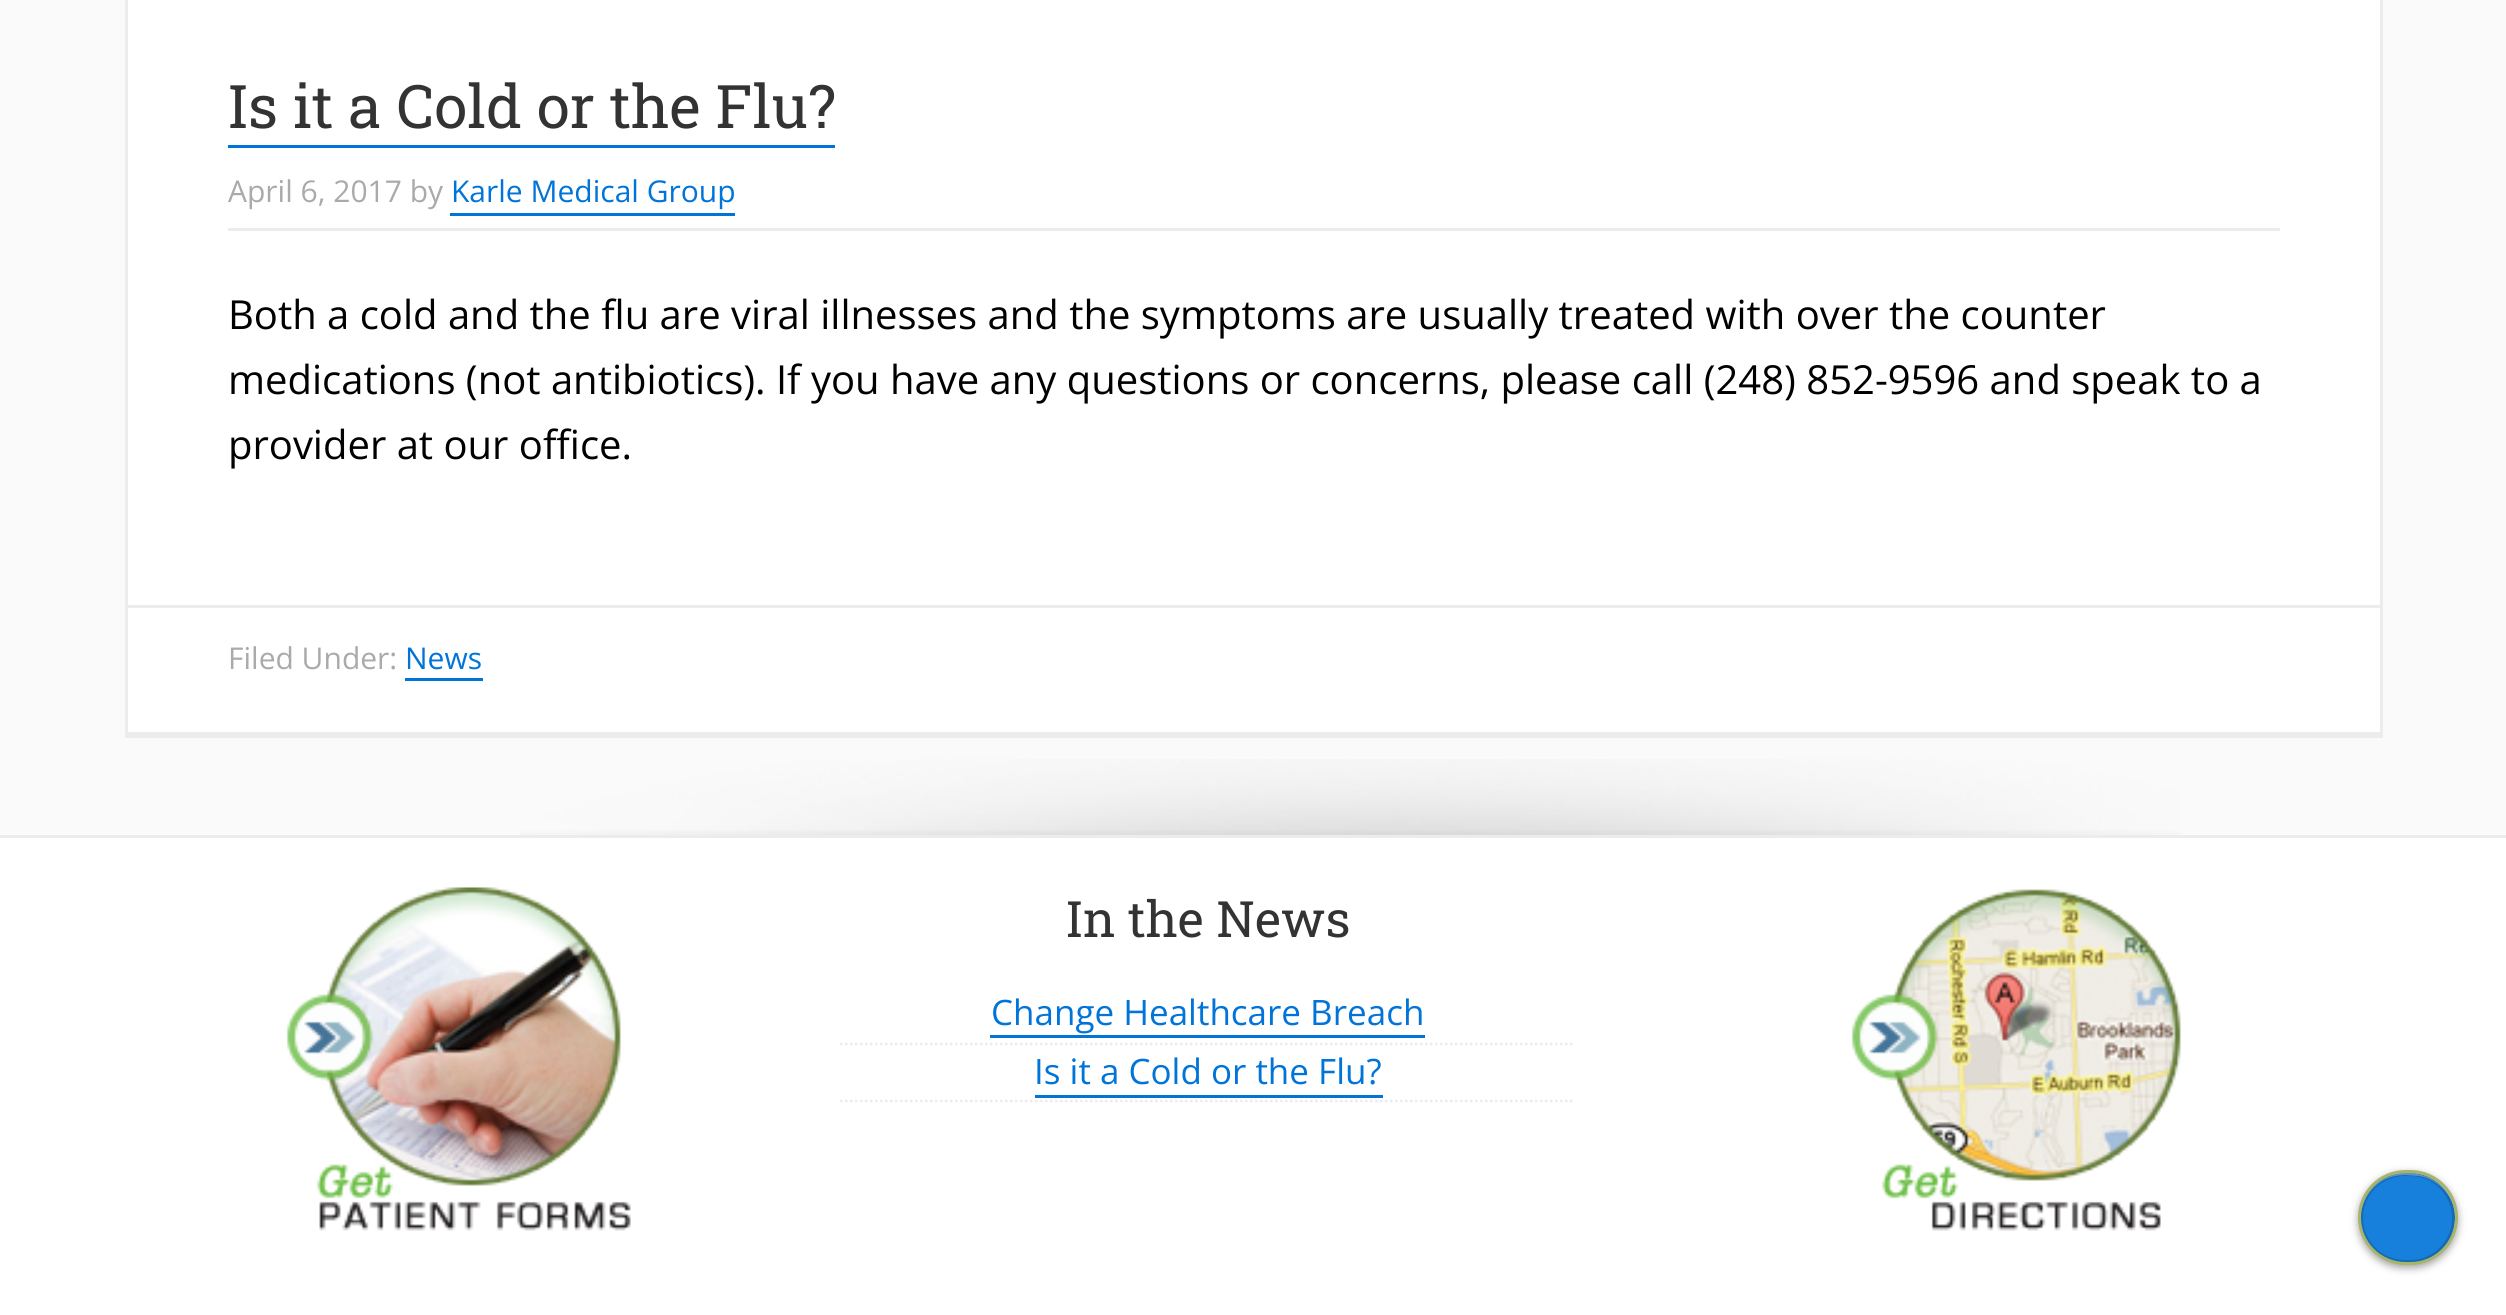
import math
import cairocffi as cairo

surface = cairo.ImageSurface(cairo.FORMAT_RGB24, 2506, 1315)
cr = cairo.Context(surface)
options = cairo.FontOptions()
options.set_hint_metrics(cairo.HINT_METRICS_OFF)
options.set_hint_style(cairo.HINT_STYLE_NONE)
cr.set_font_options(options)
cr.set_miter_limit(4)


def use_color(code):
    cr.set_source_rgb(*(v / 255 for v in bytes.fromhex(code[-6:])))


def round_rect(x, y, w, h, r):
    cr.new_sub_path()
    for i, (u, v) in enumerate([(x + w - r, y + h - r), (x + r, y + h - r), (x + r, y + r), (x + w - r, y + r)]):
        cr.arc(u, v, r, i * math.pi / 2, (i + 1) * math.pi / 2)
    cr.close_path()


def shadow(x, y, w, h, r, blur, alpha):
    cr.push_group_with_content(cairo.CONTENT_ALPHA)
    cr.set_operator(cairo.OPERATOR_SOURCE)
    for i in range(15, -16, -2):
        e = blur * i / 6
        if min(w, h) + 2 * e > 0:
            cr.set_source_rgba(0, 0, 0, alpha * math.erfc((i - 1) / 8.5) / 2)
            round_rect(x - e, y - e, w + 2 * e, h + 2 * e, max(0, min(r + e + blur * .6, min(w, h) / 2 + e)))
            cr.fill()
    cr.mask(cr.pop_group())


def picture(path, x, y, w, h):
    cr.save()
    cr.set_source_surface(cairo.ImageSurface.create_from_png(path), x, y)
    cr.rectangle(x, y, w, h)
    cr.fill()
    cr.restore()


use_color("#ffffff")
cr.paint()
use_color("#fafafa")
cr.rectangle(0, 0, 2506, 835)
cr.fill()
picture("img1.png", 520, 759, 1660, 76)
use_color("#ececec")
cr.new_path()
cr.move_to(125, 735)
cr.line_to(125, 738)
cr.line_to(2383, 738)
cr.line_to(2383, -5)
cr.line_to(2382, -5)
cr.line_to(2382, 735)
cr.close_path()
cr.fill()
use_color("#ffffff")
cr.rectangle(126.5, -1.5, 2255, 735)
cr.fill_preserve()
use_color("#ececec")
cr.set_line_width(3)
cr.stroke()
cr.rectangle(228, 228, 2052, 3)
cr.fill()
cr.select_font_face("Roboto Slab")
cr.set_font_size(60)
use_color("#333333")
cr.move_to(228, 128)
cr.show_text("Is it a Cold or the Flu?")
use_color("#0074d9")
cr.rectangle(228, 145, 607, 3)
cr.fill()
cr.select_font_face("Open Sans")
cr.set_font_size(30)
use_color("#aaaaaa")
cr.move_to(228, 202)
cr.show_text("April 6, 2017 by")
use_color("#0074d9")
cr.move_to(451, 202)
cr.show_text("Karle Medical Group")
cr.rectangle(450, 213, 285, 3)
cr.fill()
cr.set_font_size(40)
use_color("#000000")
cr.move_to(228, 329)
cr.show_text("Both a cold and the flu are viral illnesses and the symptoms are usually treated with over the counter")
cr.move_to(228, 394)
cr.show_text("medications (not antibiotics). If you have any questions or concerns, please call (248) 852-9596 and speak to a")
cr.move_to(228, 459)
cr.show_text("provider at our office.")
use_color("#ececec")
cr.rectangle(128, 605, 2252, 3)
cr.fill()
cr.set_font_size(30)
use_color("#aaaaaa")
cr.move_to(228, 669)
cr.show_text("Filed Under:")
use_color("#0074d9")
cr.move_to(405, 669)
cr.show_text("News")
cr.rectangle(405, 678, 78, 3)
cr.fill()
use_color("#ececec")
cr.rectangle(0, 835, 2506, 3)
cr.fill()
picture("img2.png", 286, 887, 345, 344)
cr.select_font_face("Roboto Slab")
cr.set_font_size(50)
use_color("#333333")
cr.move_to(1066, 937)
cr.show_text("In the News")
cr.new_path()
cr.move_to(840, 1044)
cr.line_to(1575, 1044)
use_color("#ececec")
cr.set_line_width(2.5)
cr.set_dash([2.5, 2.5])
cr.stroke()
cr.select_font_face("Open Sans")
cr.set_font_size(35)
use_color("#0074d9")
cr.move_to(991, 1025)
cr.show_text("Change Healthcare Breach")
cr.rectangle(990, 1035, 435, 3)
cr.fill()
cr.new_path()
cr.move_to(840, 1101)
cr.line_to(1575, 1101)
use_color("#ececec")
cr.stroke()
use_color("#0074d9")
cr.move_to(1034, 1084)
cr.show_text("Is it a Cold or the Flu?")
cr.rectangle(1035, 1095, 348, 3)
cr.fill()
picture("img3.png", 1851, 889, 330, 342)
use_color("#161616")
shadow(2358, 1173, 100, 95, 47.5, 4, 0.4)
use_color("#1680dc")
round_rect(2360, 1173, 95, 90, 45)
cr.fill()
cr.set_source_rgba(1, 1, 1, 0.4)
cr.new_path()
cr.move_to(2405, 1175)
cr.line_to(2419, 1176)
cr.curve_to(2437, 1179, 2452, 1194, 2455, 1212)
cr.curve_to(2449, 1170, 2391, 1159, 2368, 1193)
cr.curve_to(2362, 1201, 2359, 1212, 2360, 1222)
cr.curve_to(2360, 1199, 2376, 1175, 2405, 1175)
cr.close_path()
cr.fill()
round_rect(2361.5, 1174.5, 92, 87, 43.5)
cr.set_source_rgba(0.086, 0.086, 0.086, 0.2)
cr.set_line_width(3)
cr.set_dash([])
cr.stroke()
round_rect(2359.5, 1171.5, 97, 92, 46)
use_color("#a7b56b")
cr.stroke()
surface.write_to_png("result.png")
